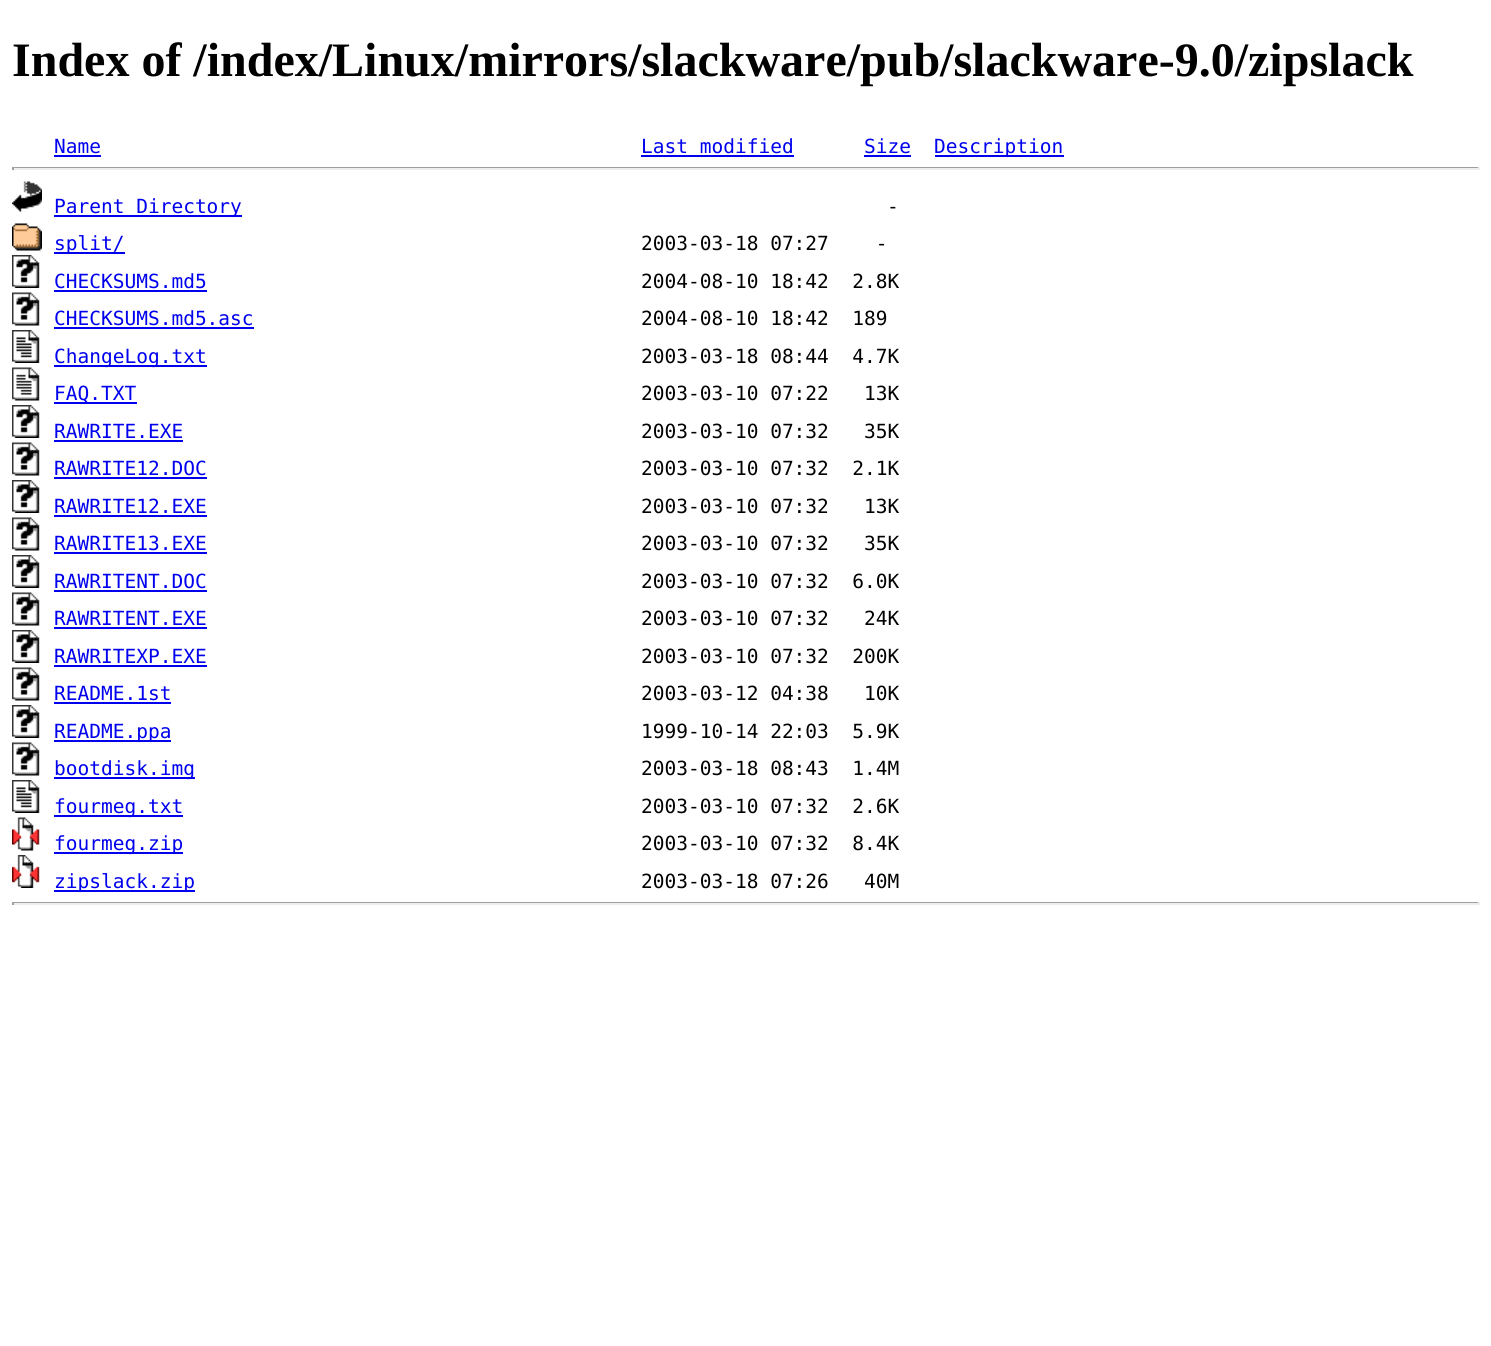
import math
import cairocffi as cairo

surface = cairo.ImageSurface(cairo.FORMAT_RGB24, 1491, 1346)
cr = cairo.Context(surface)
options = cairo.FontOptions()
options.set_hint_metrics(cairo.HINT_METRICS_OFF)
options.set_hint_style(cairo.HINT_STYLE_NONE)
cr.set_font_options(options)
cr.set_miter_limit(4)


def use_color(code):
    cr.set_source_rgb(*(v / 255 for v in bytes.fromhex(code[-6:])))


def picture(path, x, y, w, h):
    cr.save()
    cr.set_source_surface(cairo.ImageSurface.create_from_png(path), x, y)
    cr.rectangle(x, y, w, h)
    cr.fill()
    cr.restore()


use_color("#ffffff")
cr.paint()
cr.select_font_face("Liberation Serif", cairo.FONT_SLANT_NORMAL, cairo.FONT_WEIGHT_BOLD)
cr.set_font_size(48)
use_color("#000000")
cr.move_to(12, 76)
cr.show_text("Index of /index/Linux/mirrors/slackware/pub/slackware-9.0/zipslack")
cr.select_font_face("DejaVu Sans Mono")
cr.set_font_size(19.5)
use_color("#0000ee")
cr.move_to(54, 153)
cr.show_text("Name")
cr.rectangle(54, 155, 47, 2)
cr.fill()
cr.move_to(641, 153)
cr.show_text("Last modified")
cr.rectangle(641, 155, 153, 2)
cr.fill()
cr.move_to(864, 153)
cr.show_text("Size")
cr.rectangle(864, 155, 47, 2)
cr.fill()
cr.rectangle(935, 155, 129, 2)
cr.fill()
cr.move_to(934, 153)
cr.show_text("Description")
use_color("#9f9f9f")
cr.rectangle(12, 167, 1467, 1)
cr.fill()
use_color("#eeeeee")
cr.rectangle(1478, 167, 2, 3)
cr.fill()
cr.rectangle(12, 168, 1467, 2)
cr.fill()
use_color("#9f9f9f")
cr.rectangle(12, 167, 2, 3)
cr.fill()
picture("img1.png", 12, 181, 30, 31)
use_color("#0000ee")
cr.rectangle(54, 215, 188, 2)
cr.fill()
cr.move_to(54, 213)
cr.show_text("Parent Directory")
use_color("#000000")
cr.move_to(887, 213)
cr.show_text("-")
picture("img2.png", 12, 223, 30, 28)
use_color("#0000ee")
cr.rectangle(54, 252, 71, 2)
cr.fill()
cr.move_to(54, 250)
cr.show_text("split/")
use_color("#000000")
cr.move_to(641, 250)
cr.show_text("2003-03-18 07:27    -")
picture("img3.png", 12, 255, 28, 33)
use_color("#0000ee")
cr.move_to(54, 288)
cr.show_text("CHECKSUMS.md5")
cr.rectangle(54, 290, 153, 2)
cr.fill()
use_color("#000000")
cr.move_to(641, 288)
cr.show_text("2004-08-10 18:42  2.8K")
picture("img4.png", 12, 292, 28, 34)
use_color("#0000ee")
cr.move_to(54, 325)
cr.show_text("CHECKSUMS.md5.asc")
cr.rectangle(54, 327, 200, 2)
cr.fill()
use_color("#000000")
cr.move_to(641, 325)
cr.show_text("2004-08-10 18:42  189")
picture("img5.png", 12, 330, 28, 33)
use_color("#0000ee")
cr.rectangle(54, 365, 153, 2)
cr.fill()
cr.move_to(54, 363)
cr.show_text("ChangeLog.txt")
use_color("#000000")
cr.move_to(641, 363)
cr.show_text("2003-03-18 08:44  4.7K")
picture("img6.png", 12, 367, 28, 34)
use_color("#0000ee")
cr.rectangle(54, 402, 83, 2)
cr.fill()
cr.move_to(54, 400)
cr.show_text("FAQ.TXT")
use_color("#000000")
cr.move_to(641, 400)
cr.show_text("2003-03-10 07:22   13K")
picture("img3.png", 12, 405, 28, 33)
use_color("#0000ee")
cr.move_to(54, 438)
cr.show_text("RAWRITE.EXE")
cr.rectangle(54, 440, 129, 2)
cr.fill()
use_color("#000000")
cr.move_to(641, 438)
cr.show_text("2003-03-10 07:32   35K")
picture("img4.png", 12, 442, 28, 34)
use_color("#0000ee")
cr.move_to(54, 475)
cr.show_text("RAWRITE12.DOC")
cr.rectangle(54, 477, 153, 2)
cr.fill()
use_color("#000000")
cr.move_to(641, 475)
cr.show_text("2003-03-10 07:32  2.1K")
picture("img3.png", 12, 480, 28, 33)
use_color("#0000ee")
cr.move_to(54, 513)
cr.show_text("RAWRITE12.EXE")
cr.rectangle(54, 515, 153, 2)
cr.fill()
use_color("#000000")
cr.move_to(641, 513)
cr.show_text("2003-03-10 07:32   13K")
picture("img4.png", 12, 517, 28, 34)
use_color("#0000ee")
cr.move_to(54, 550)
cr.show_text("RAWRITE13.EXE")
cr.rectangle(54, 552, 153, 2)
cr.fill()
use_color("#000000")
cr.move_to(641, 550)
cr.show_text("2003-03-10 07:32   35K")
picture("img3.png", 12, 555, 28, 33)
use_color("#0000ee")
cr.move_to(54, 588)
cr.show_text("RAWRITENT.DOC")
cr.rectangle(54, 590, 153, 2)
cr.fill()
use_color("#000000")
cr.move_to(641, 588)
cr.show_text("2003-03-10 07:32  6.0K")
picture("img4.png", 12, 592, 28, 34)
use_color("#0000ee")
cr.move_to(54, 625)
cr.show_text("RAWRITENT.EXE")
cr.rectangle(54, 627, 153, 2)
cr.fill()
use_color("#000000")
cr.move_to(641, 625)
cr.show_text("2003-03-10 07:32   24K")
picture("img3.png", 12, 630, 28, 33)
use_color("#0000ee")
cr.move_to(54, 663)
cr.show_text("RAWRITEXP.EXE")
cr.rectangle(54, 665, 153, 2)
cr.fill()
use_color("#000000")
cr.move_to(641, 663)
cr.show_text("2003-03-10 07:32  200K")
picture("img4.png", 12, 667, 28, 34)
use_color("#0000ee")
cr.move_to(54, 700)
cr.show_text("README.1st")
cr.rectangle(54, 702, 117, 2)
cr.fill()
use_color("#000000")
cr.move_to(641, 700)
cr.show_text("2003-03-12 04:38   10K")
picture("img3.png", 12, 705, 28, 33)
use_color("#0000ee")
cr.rectangle(54, 740, 117, 2)
cr.fill()
cr.move_to(54, 738)
cr.show_text("README.ppa")
use_color("#000000")
cr.move_to(641, 738)
cr.show_text("1999-10-14 22:03  5.9K")
picture("img4.png", 12, 742, 28, 34)
use_color("#0000ee")
cr.rectangle(54, 777, 141, 2)
cr.fill()
cr.move_to(54, 775)
cr.show_text("bootdisk.img")
use_color("#000000")
cr.move_to(641, 775)
cr.show_text("2003-03-18 08:43  1.4M")
picture("img5.png", 12, 780, 28, 33)
use_color("#0000ee")
cr.rectangle(54, 815, 129, 2)
cr.fill()
cr.move_to(54, 813)
cr.show_text("fourmeg.txt")
use_color("#000000")
cr.move_to(641, 813)
cr.show_text("2003-03-10 07:32  2.6K")
picture("img7.png", 12, 817, 28, 34)
use_color("#0000ee")
cr.rectangle(54, 852, 129, 2)
cr.fill()
cr.move_to(54, 850)
cr.show_text("fourmeg.zip")
use_color("#000000")
cr.move_to(641, 850)
cr.show_text("2003-03-10 07:32  8.4K")
picture("img8.png", 12, 855, 28, 33)
use_color("#0000ee")
cr.rectangle(54, 890, 141, 2)
cr.fill()
cr.move_to(54, 888)
cr.show_text("zipslack.zip")
use_color("#000000")
cr.move_to(641, 888)
cr.show_text("2003-03-18 07:26   40M")
use_color("#9f9f9f")
cr.rectangle(12, 902, 1467, 1)
cr.fill()
use_color("#eeeeee")
cr.rectangle(1478, 902, 2, 3)
cr.fill()
cr.rectangle(12, 903, 1467, 2)
cr.fill()
use_color("#9f9f9f")
cr.rectangle(12, 902, 2, 3)
cr.fill()
surface.write_to_png("result.png")
